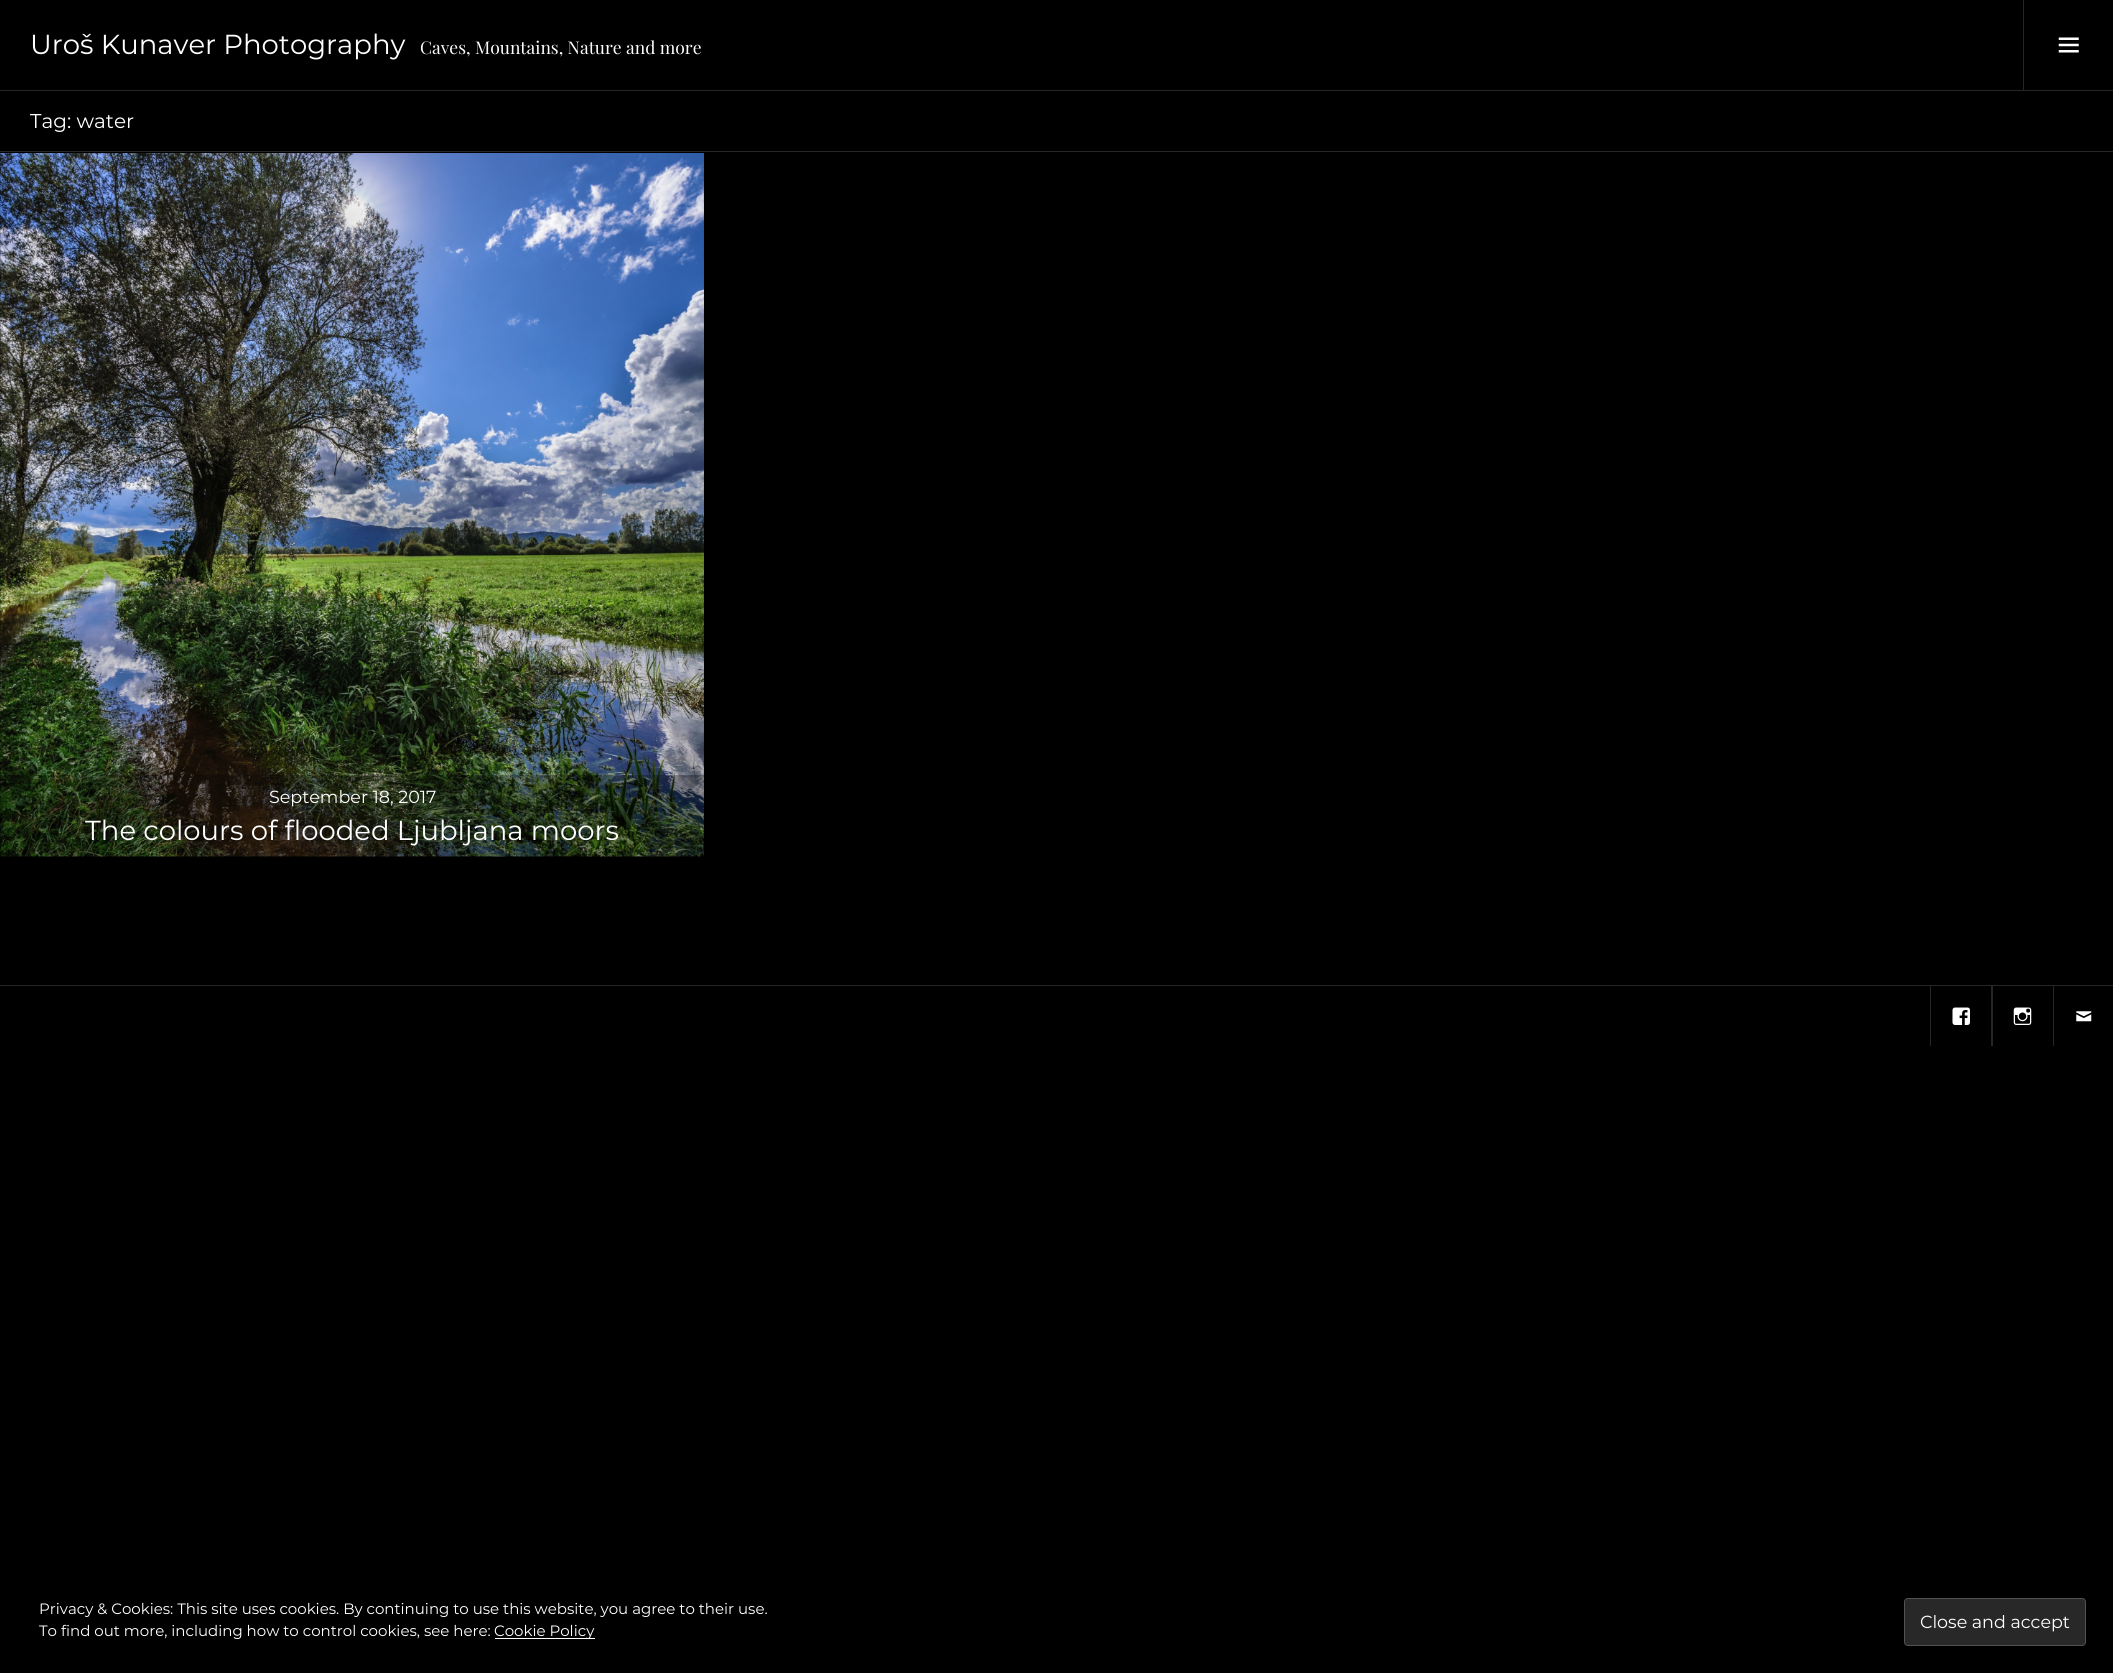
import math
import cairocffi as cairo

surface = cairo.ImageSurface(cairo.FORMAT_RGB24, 2113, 1673)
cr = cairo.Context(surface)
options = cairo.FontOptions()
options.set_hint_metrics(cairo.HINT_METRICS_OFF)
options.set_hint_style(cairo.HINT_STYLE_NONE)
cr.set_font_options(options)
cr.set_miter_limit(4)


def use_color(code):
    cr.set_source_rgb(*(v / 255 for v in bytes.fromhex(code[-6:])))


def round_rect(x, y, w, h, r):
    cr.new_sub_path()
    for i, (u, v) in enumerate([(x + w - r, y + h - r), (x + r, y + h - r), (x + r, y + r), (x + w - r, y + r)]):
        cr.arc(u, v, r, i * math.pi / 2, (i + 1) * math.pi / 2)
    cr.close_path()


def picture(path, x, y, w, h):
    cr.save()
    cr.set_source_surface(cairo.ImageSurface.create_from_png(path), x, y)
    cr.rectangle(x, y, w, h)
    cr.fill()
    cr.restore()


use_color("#000000")
cr.paint()
use_color("#262626")
cr.rectangle(0, 90, 2113, 1)
cr.fill()
cr.select_font_face("Montserrat")
cr.set_font_size(27.5)
use_color("#ffffff")
cr.move_to(30, 54)
cr.show_text("Uroš Kunaver Photography")
cr.select_font_face("Playfair Display")
cr.set_font_size(17.5)
cr.move_to(420, 54)
cr.show_text("Caves, Mountains, Nature and more")
use_color("#262626")
cr.rectangle(2023, 0, 1, 90)
cr.fill()
picture("img1.png", 2058, 37, 21, 16)
cr.rectangle(0, 151, 2113, 1)
cr.fill()
cr.select_font_face("Montserrat")
cr.set_font_size(20)
use_color("#ffffff")
cr.move_to(30, 128)
cr.show_text("Tag: water")
picture("img2.png", 0, 153, 704, 704)
cr.set_source_rgba(0, 0, 0, 0.25)
cr.rectangle(0, 775, 704, 82)
cr.fill()
cr.set_font_size(17.5)
use_color("#ffffff")
cr.move_to(269, 803)
cr.show_text("September 18, 2017")
cr.set_font_size(27.5)
cr.move_to(85, 840)
cr.show_text("The colours of flooded Ljubljana moors")
use_color("#262626")
cr.rectangle(0, 985, 2113, 1)
cr.fill()
cr.save()
cr.rectangle(0, 986, 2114, 60)
cr.clip()
cr.rectangle(1930.5, 985.5, 62, 62)
cr.set_line_width(1)
cr.stroke()
cr.restore()
picture("img3.png", 1952, 1007, 18, 18)
cr.save()
cr.rectangle(0, 986, 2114, 60)
cr.clip()
cr.rectangle(1991.5, 985.5, 62, 62)
cr.set_line_width(1)
cr.stroke()
cr.restore()
picture("img4.png", 2013, 1007, 19, 18)
picture("img5.png", 2076, 1011, 16, 11)
cr.set_font_size(15)
use_color("#ffffff")
cr.move_to(39, 1614)
cr.show_text("Privacy & Cookies: This site uses cookies. By continuing to use this website, you agree to their use.")
cr.move_to(39, 1636)
cr.show_text("To find out more, including how to control cookies, see here:")
cr.rectangle(495, 1638, 100, 1)
cr.fill()
cr.move_to(494, 1636)
cr.show_text("Cookie Policy")
use_color("#282828")
round_rect(1904.5, 1598.5, 181, 47, 3.5)
cr.fill_preserve()
use_color("#535353")
cr.set_line_width(1)
cr.stroke()
cr.set_font_size(17.5)
use_color("#ffffff")
cr.move_to(1920, 1628)
cr.show_text("Close and accept")
surface.write_to_png("result.png")
